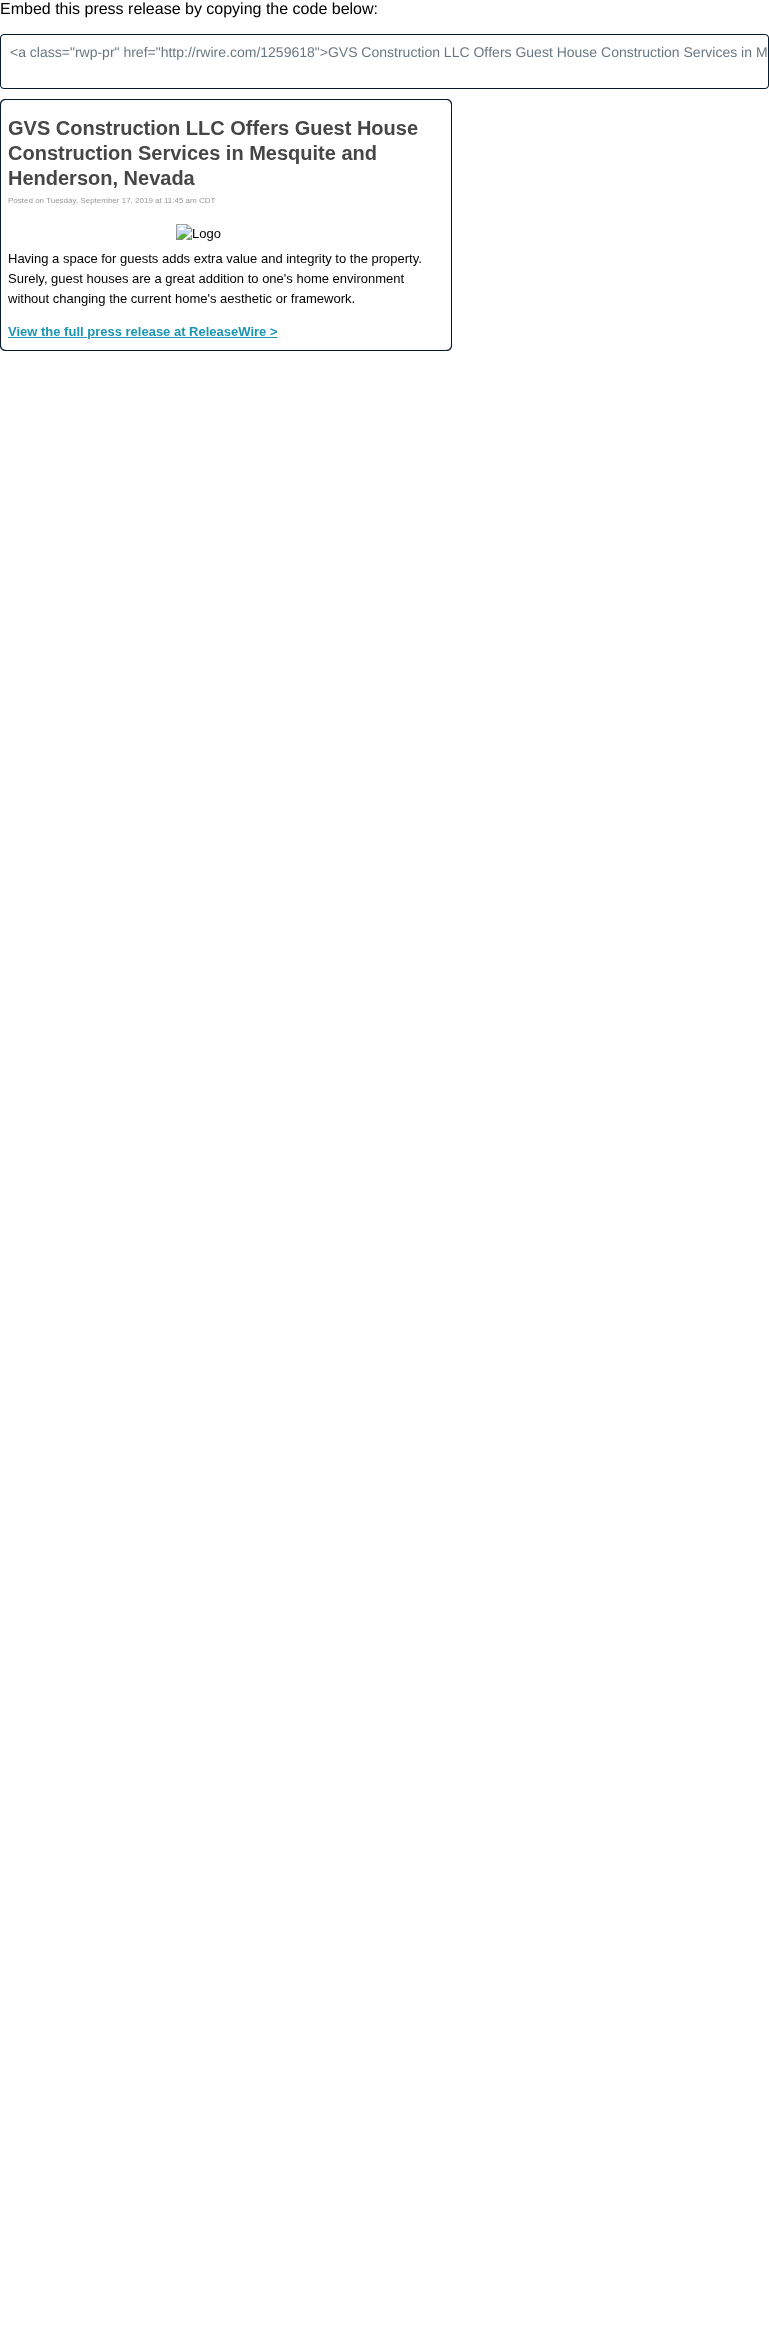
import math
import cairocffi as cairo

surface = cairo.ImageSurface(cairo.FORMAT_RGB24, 769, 2345)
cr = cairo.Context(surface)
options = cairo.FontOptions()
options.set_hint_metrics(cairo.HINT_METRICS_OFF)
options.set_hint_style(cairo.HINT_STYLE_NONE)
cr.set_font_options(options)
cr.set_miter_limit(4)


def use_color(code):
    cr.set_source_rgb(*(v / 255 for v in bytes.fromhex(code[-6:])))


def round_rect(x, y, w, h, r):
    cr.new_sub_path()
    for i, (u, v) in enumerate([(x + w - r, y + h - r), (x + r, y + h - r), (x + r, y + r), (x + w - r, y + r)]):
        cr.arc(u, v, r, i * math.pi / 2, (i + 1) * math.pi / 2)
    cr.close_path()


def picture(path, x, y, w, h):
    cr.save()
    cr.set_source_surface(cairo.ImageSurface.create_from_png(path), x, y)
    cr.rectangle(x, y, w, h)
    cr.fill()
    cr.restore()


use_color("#ffffff")
cr.paint()
cr.select_font_face("Liberation Sans")
cr.set_font_size(16)
use_color("#000000")
cr.move_to(0, 14)
cr.show_text("Embed this press release by copying the code below:")
round_rect(0.5, 34.5, 768, 54, 3.5)
use_color("#061b2d")
cr.set_line_width(1)
cr.stroke()
cr.set_font_size(14)
use_color("#66757f")
cr.move_to(10, 57)
cr.show_text("<a class=\"rwp-pr\" href=\"http://rwire.com/1259618\">GVS Construction LLC Offers Guest House Construction Services in M")
round_rect(0.5, 99.5, 451, 251, 4.5)
use_color("#061b2d")
cr.stroke()
picture("img1.png", 1, 100, 450, 250)
surface.write_to_png("result.png")
